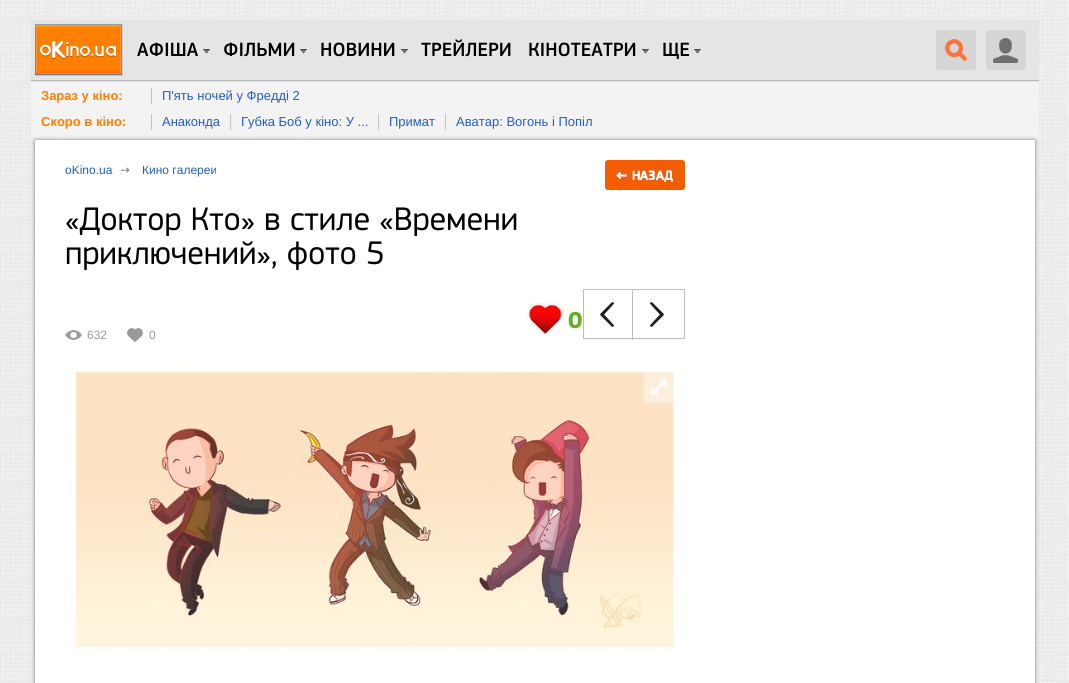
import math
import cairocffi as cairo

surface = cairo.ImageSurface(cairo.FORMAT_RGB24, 1069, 683)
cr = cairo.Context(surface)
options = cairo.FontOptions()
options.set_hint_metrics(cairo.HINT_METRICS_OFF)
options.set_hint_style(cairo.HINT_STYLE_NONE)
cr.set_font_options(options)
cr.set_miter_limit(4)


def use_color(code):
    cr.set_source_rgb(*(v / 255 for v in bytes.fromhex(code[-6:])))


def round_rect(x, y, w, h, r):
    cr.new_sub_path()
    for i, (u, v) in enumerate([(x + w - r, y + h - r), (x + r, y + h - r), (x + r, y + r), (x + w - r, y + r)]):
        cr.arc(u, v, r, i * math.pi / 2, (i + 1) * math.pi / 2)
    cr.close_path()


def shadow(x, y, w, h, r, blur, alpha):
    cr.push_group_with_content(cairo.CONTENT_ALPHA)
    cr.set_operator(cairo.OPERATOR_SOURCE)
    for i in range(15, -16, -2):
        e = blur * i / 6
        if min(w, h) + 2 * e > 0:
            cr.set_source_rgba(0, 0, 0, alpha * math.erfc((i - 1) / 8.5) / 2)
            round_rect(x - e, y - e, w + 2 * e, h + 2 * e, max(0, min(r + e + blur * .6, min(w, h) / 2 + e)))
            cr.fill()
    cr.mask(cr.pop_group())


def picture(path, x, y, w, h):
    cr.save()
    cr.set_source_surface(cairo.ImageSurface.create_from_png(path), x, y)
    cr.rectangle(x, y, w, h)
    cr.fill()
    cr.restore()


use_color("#ffffff")
cr.paint()
picture("img1.png", 0, 0, 1069, 683)
use_color("#e2e2e2")
cr.rectangle(31, 81, 1008, 1)
cr.fill()
use_color("#b9b9b9")
cr.rectangle(31, 80, 1008, 1)
cr.fill()
use_color("#e5e5e5")
cr.rectangle(31, 20, 1008, 60)
cr.fill()
picture("img2.png", 35, 24, 88, 52)
picture("img3.png", 203, 49, 7, 5)
picture("img4.png", 137, 42, 61, 14)
picture("img3.png", 300, 49, 7, 5)
picture("img5.png", 224, 42, 71, 15)
picture("img3.png", 401, 49, 7, 5)
picture("img6.png", 321, 42, 74, 15)
picture("img7.png", 421, 39, 90, 18)
picture("img3.png", 642, 49, 7, 5)
picture("img8.png", 529, 42, 107, 15)
picture("img3.png", 694, 49, 7, 5)
picture("img9.png", 663, 42, 26, 18)
use_color("#d6d6d7")
round_rect(936.5, 30.5, 39, 39, 2.5)
cr.fill_preserve()
cr.set_line_width(1)
cr.stroke()
picture("img10.png", 945, 39, 22, 22)
round_rect(986, 30, 40, 40, 3)
cr.fill()
picture("img11.png", 993, 38, 25, 25)
use_color("#f3f3f3")
cr.rectangle(31, 82, 1008, 58)
cr.fill()
cr.select_font_face("Liberation Sans", cairo.FONT_SLANT_NORMAL, cairo.FONT_WEIGHT_BOLD)
cr.set_font_size(13)
use_color("#ff7f00")
cr.move_to(41, 100)
cr.show_text("Зараз у кіно:")
use_color("#c2c2c2")
cr.rectangle(151, 88, 1, 16)
cr.fill()
cr.select_font_face("Liberation Sans")
use_color("#245dc1")
cr.move_to(162, 100)
cr.show_text("П'ять ночей у Фредді 2")
cr.select_font_face("Liberation Sans", cairo.FONT_SLANT_NORMAL, cairo.FONT_WEIGHT_BOLD)
use_color("#ff7f00")
cr.move_to(41, 126)
cr.show_text("Скоро в кіно:")
use_color("#c2c2c2")
cr.rectangle(151, 114, 1, 16)
cr.fill()
cr.select_font_face("Liberation Sans")
use_color("#245dc1")
cr.move_to(162, 126)
cr.show_text("Анаконда")
use_color("#c2c2c2")
cr.rectangle(230, 114, 1, 16)
cr.fill()
use_color("#245dc1")
cr.move_to(241, 126)
cr.show_text("Губка Боб у кіно: У ...")
use_color("#c2c2c2")
cr.rectangle(378, 114, 1, 16)
cr.fill()
use_color("#245dc1")
cr.move_to(389, 126)
cr.show_text("Примат")
use_color("#c2c2c2")
cr.rectangle(445, 114, 1, 16)
cr.fill()
use_color("#245dc1")
cr.move_to(456, 126)
cr.show_text("Аватар: Вогонь і Попіл")
use_color("#000000")
shadow(35, 140, 1000, 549, 0, 2, 0.5)
use_color("#ffffff")
cr.rectangle(35, 140, 1000, 543)
cr.fill()
cr.set_font_size(12)
use_color("#245dc1")
cr.move_to(65, 174)
cr.show_text("oKino.ua")
picture("img12.png", 121, 167, 9, 6)
cr.move_to(142, 174)
cr.show_text("Кино галереи")
picture("img13.png", 605, 160, 80, 30)
picture("img14.png", 66, 207, 451, 29)
picture("img15.png", 66, 241, 317, 29)
picture("img16.png", 527, 303, 37, 32)
cr.select_font_face("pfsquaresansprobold", cairo.FONT_SLANT_NORMAL, cairo.FONT_WEIGHT_BOLD)
cr.set_font_size(24)
use_color("#61ae24")
cr.move_to(568, 328)
cr.show_text("0")
cr.rectangle(583.5, 289.5, 101, 49)
use_color("#bfbfbf")
cr.stroke()
picture("img17.png", 600, 302, 14, 25)
picture("img18.png", 650, 302, 14, 25)
cr.rectangle(632, 290, 1, 50)
cr.fill()
picture("img19.png", 65, 330, 17, 10)
cr.select_font_face("Liberation Sans")
cr.set_font_size(12)
use_color("#999999")
cr.move_to(87, 339)
cr.show_text("632")
picture("img20.png", 127, 328, 16, 14)
cr.move_to(149, 339)
cr.show_text("0")
picture("img21.png", 68, 364, 606, 287)
picture("img22.png", 643, 371, 31, 32)
surface.write_to_png("result.png")
